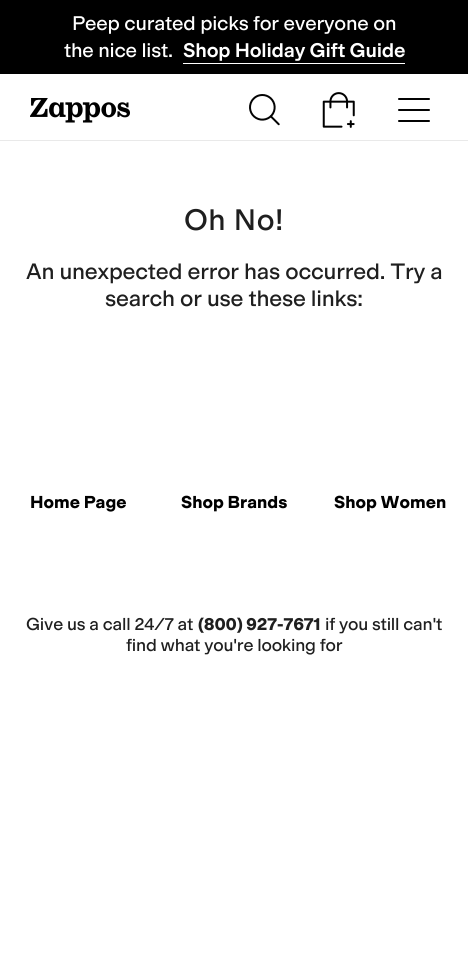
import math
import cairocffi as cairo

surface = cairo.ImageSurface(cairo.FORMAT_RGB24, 468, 954)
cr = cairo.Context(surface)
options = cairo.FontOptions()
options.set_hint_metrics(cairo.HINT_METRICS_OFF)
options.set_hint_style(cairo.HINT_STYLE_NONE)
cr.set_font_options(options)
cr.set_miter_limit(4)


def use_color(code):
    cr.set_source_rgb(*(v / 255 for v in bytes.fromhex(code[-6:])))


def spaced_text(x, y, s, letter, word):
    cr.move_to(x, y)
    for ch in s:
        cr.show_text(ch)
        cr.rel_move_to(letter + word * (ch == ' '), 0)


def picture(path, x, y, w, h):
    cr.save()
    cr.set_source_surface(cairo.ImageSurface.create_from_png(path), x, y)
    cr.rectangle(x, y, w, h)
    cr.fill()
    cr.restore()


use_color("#ffffff")
cr.paint()
use_color("#000000")
cr.rectangle(0, 0, 468, 74)
cr.fill()
cr.select_font_face("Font")
cr.set_font_size(20)
use_color("#ffffff")
spaced_text(72, 30, "Peep curated picks for everyone on", -0.2, 0)
spaced_text(64, 57, "the nice list.", -0.2, 0)
cr.select_font_face("Font Medium")
spaced_text(183, 57, "Shop Holiday Gift Guide", -0.2, 0)
cr.rectangle(183, 63, 222, 1)
cr.fill()
use_color("#e9e9e9")
cr.rectangle(0, 140, 468, 1)
cr.fill()
picture("img1.png", 30, 98, 100, 25)
picture("img2.png", 249, 94, 31, 32)
picture("img3.png", 322, 92, 33, 36)
cr.new_path()
cr.move_to(399, 121)
cr.line_to(429, 121)
cr.move_to(399, 110)
cr.line_to(429, 110)
cr.move_to(399, 99)
cr.line_to(429, 99)
use_color("#030303")
cr.set_line_cap(cairo.LINE_CAP_ROUND)
cr.stroke()
cr.select_font_face("Font")
cr.set_font_size(30)
use_color("#1f1f1f")
spaced_text(184, 230, "Oh No!", 0.5, 0)
cr.set_font_size(22.5)
spaced_text(26, 279, "An unexpected error has occurred. Try a", -0.2, 0)
spaced_text(105, 306, "search or use these links:", -0.2, 0)
cr.select_font_face("Font", cairo.FONT_SLANT_NORMAL, cairo.FONT_WEIGHT_BOLD)
cr.set_font_size(17.5)
use_color("#000000")
cr.move_to(30, 508)
cr.show_text("Home Page")
cr.move_to(181, 508)
cr.show_text("Shop Brands")
cr.move_to(334, 508)
cr.show_text("Shop Women")
cr.select_font_face("Font")
use_color("#1f1f1f")
spaced_text(26, 630, "Give us a call 24/7 at", -0.2, 0)
cr.select_font_face("Font", cairo.FONT_SLANT_NORMAL, cairo.FONT_WEIGHT_BOLD)
spaced_text(198, 630, "(800) 927-7671", -0.2, 0)
cr.select_font_face("Font")
spaced_text(325, 630, "if you still can't", -0.2, 0)
spaced_text(126, 651, "find what you're looking for", -0.2, 0)
surface.write_to_png("result.png")
